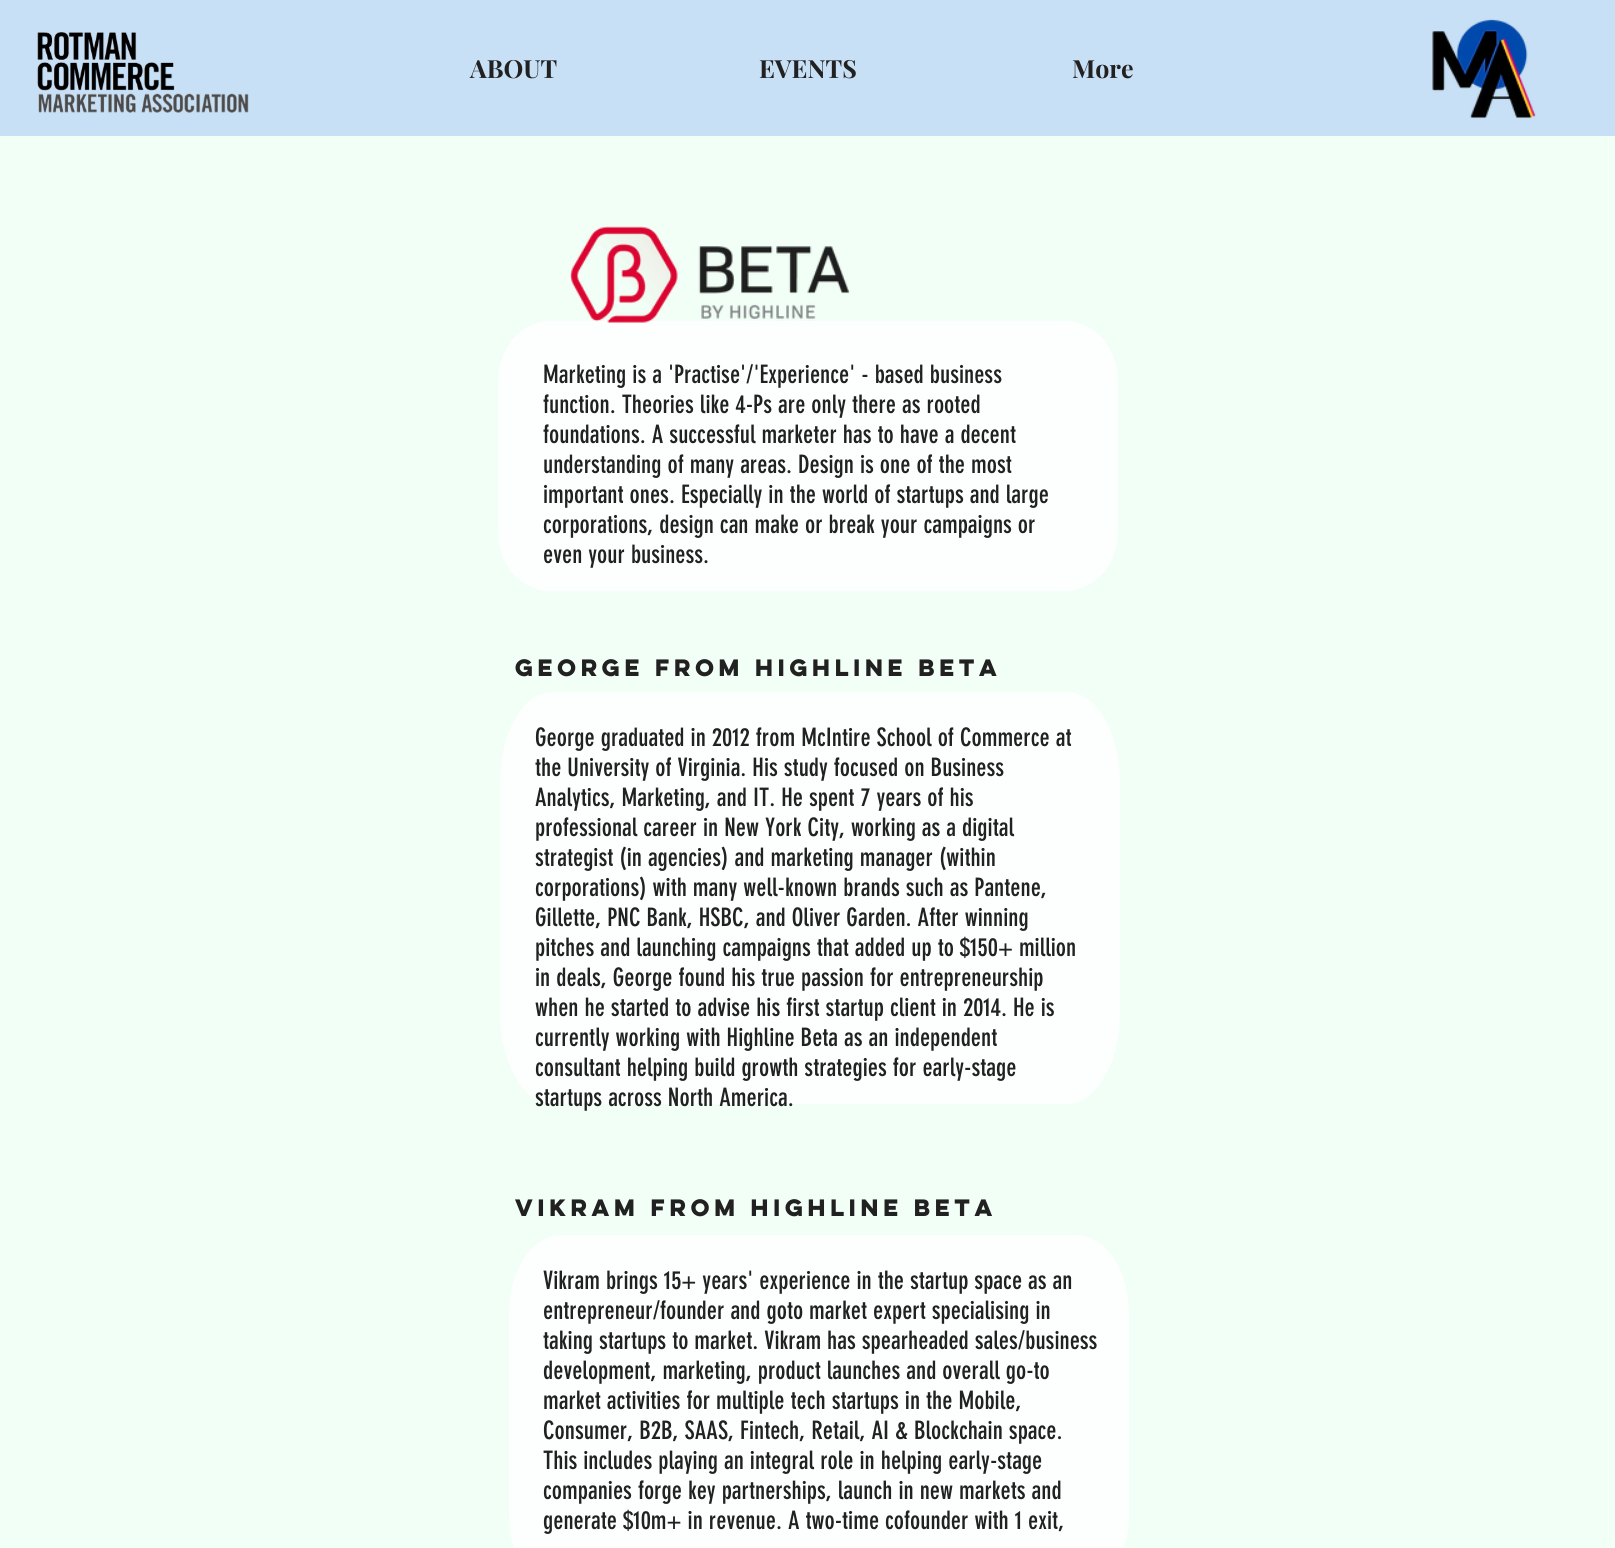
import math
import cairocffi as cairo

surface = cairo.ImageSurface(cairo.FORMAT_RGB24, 1615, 1548)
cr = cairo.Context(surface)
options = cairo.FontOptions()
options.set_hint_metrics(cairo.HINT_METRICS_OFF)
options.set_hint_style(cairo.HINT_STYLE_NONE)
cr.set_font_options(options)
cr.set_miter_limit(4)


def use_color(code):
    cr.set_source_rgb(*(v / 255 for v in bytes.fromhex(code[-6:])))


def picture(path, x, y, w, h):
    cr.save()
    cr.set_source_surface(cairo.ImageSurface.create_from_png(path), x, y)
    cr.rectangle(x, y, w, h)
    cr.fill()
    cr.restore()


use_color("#f1fff6")
cr.paint()
use_color("#c8e0f6")
cr.rectangle(0, 0, 1615, 136)
cr.fill()
picture("img1.png", 1432, 19, 104, 100)
picture("img2.png", 37, 32, 212, 81)
cr.select_font_face("Playfair Display", cairo.FONT_SLANT_NORMAL, cairo.FONT_WEIGHT_BOLD)
cr.set_font_size(25)
use_color("#212121")
cr.move_to(470, 78)
cr.show_text("ABOUT")
cr.move_to(759, 78)
cr.show_text("EVENTS")
cr.move_to(1072, 78)
cr.show_text("More")
use_color("#fcfffd")
cr.new_path()
cr.move_to(1065, 591)
cr.line_to(550, 591)
cr.curve_to(521, 591, 498, 565, 498, 533)
cr.line_to(498, 380)
cr.curve_to(498, 348, 521, 321, 550, 321)
cr.line_to(1065, 321)
cr.curve_to(1094, 321, 1118, 347, 1118, 380)
cr.line_to(1118, 533)
cr.curve_to(1118, 565, 1094, 591, 1065, 591)
cr.close_path()
cr.fill()
picture("img3.png", 570, 226, 280, 97)
cr.select_font_face("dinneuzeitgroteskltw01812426")
use_color("#212121")
cr.move_to(543, 383)
cr.show_text("Marketing is a 'Practise'/'Experience' - based business")
cr.move_to(543, 413)
cr.show_text("function. Theories like 4-Ps are only there as rooted")
cr.move_to(543, 443)
cr.show_text("foundations. A successful marketer has to have a decent")
cr.move_to(543, 473)
cr.show_text("understanding of many areas. Design is one of the most")
cr.move_to(543, 503)
cr.show_text("important ones. Especially in the world of startups and large")
cr.move_to(543, 533)
cr.show_text("corporations, design can make or break your campaigns or")
cr.move_to(543, 563)
cr.show_text("even your business.")
cr.select_font_face("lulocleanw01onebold", cairo.FONT_SLANT_NORMAL, cairo.FONT_WEIGHT_BOLD)
cr.set_font_size(21.25)
cr.move_to(515, 676)
cr.show_text("George from Highline Beta")
use_color("#fcfffd")
cr.new_path()
cr.move_to(1068, 1104)
cr.line_to(552, 1104)
cr.curve_to(524, 1104, 500, 1064, 500, 1014)
cr.line_to(500, 782)
cr.curve_to(500, 733, 523, 692, 552, 692)
cr.line_to(1068, 692)
cr.curve_to(1096, 692, 1120, 732, 1120, 782)
cr.line_to(1120, 1014)
cr.curve_to(1120, 1064, 1096, 1104, 1068, 1104)
cr.close_path()
cr.fill()
cr.select_font_face("dinneuzeitgroteskltw01812426")
cr.set_font_size(25)
use_color("#212121")
cr.move_to(535, 746)
cr.show_text("George graduated in 2012 from McIntire School of Commerce at")
cr.move_to(535, 776)
cr.show_text("the University of Virginia. His study focused on Business")
cr.move_to(535, 806)
cr.show_text("Analytics, Marketing, and IT. He spent 7 years of his")
cr.move_to(535, 836)
cr.show_text("professional career in New York City, working as a digital")
cr.move_to(535, 866)
cr.show_text("strategist (in agencies) and marketing manager (within")
cr.move_to(535, 896)
cr.show_text("corporations) with many well-known brands such as Pantene,")
cr.move_to(535, 926)
cr.show_text("Gillette, PNC Bank, HSBC, and Oliver Garden. After winning")
cr.move_to(535, 956)
cr.show_text("pitches and launching campaigns that added up to $150+ million")
cr.move_to(535, 986)
cr.show_text("in deals, George found his true passion for entrepreneurship")
cr.move_to(535, 1016)
cr.show_text("when he started to advise his first startup client in 2014. He is")
cr.move_to(535, 1046)
cr.show_text("currently working with Highline Beta as an independent")
cr.move_to(535, 1076)
cr.show_text("consultant helping build growth strategies for early-stage")
cr.move_to(535, 1106)
cr.show_text("startups across North America.")
cr.select_font_face("lulocleanw01onebold", cairo.FONT_SLANT_NORMAL, cairo.FONT_WEIGHT_BOLD)
cr.set_font_size(21.25)
cr.move_to(515, 1216)
cr.show_text("Vikram from highline beta")
use_color("#fcfffd")
cr.new_path()
cr.move_to(1077, 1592)
cr.line_to(561, 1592)
cr.curve_to(532, 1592, 509, 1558, 509, 1515)
cr.line_to(509, 1313)
cr.curve_to(509, 1270, 532, 1235, 561, 1235)
cr.line_to(1077, 1235)
cr.curve_to(1105, 1235, 1129, 1270, 1129, 1313)
cr.line_to(1129, 1515)
cr.curve_to(1129, 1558, 1105, 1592, 1077, 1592)
cr.close_path()
cr.fill()
cr.select_font_face("dinneuzeitgroteskltw01812426")
cr.set_font_size(25)
use_color("#212121")
cr.move_to(543, 1289)
cr.show_text("Vikram brings 15+ years' experience in the startup space as an")
cr.move_to(543, 1319)
cr.show_text("entrepreneur/founder and goto market expert specialising in")
cr.move_to(543, 1349)
cr.show_text("taking startups to market. Vikram has spearheaded sales/business")
cr.move_to(543, 1379)
cr.show_text("development, marketing, product launches and overall go-to")
cr.move_to(543, 1409)
cr.show_text("market activities for multiple tech startups in the Mobile,")
cr.move_to(543, 1439)
cr.show_text("Consumer, B2B, SAAS, Fintech, Retail, AI & Blockchain space.")
cr.move_to(543, 1469)
cr.show_text("This includes playing an integral role in helping early-stage")
cr.move_to(543, 1499)
cr.show_text("companies forge key partnerships, launch in new markets and")
cr.move_to(543, 1529)
cr.show_text("generate $10m+ in revenue. A two-time cofounder with 1 exit,")
surface.write_to_png("result.png")
